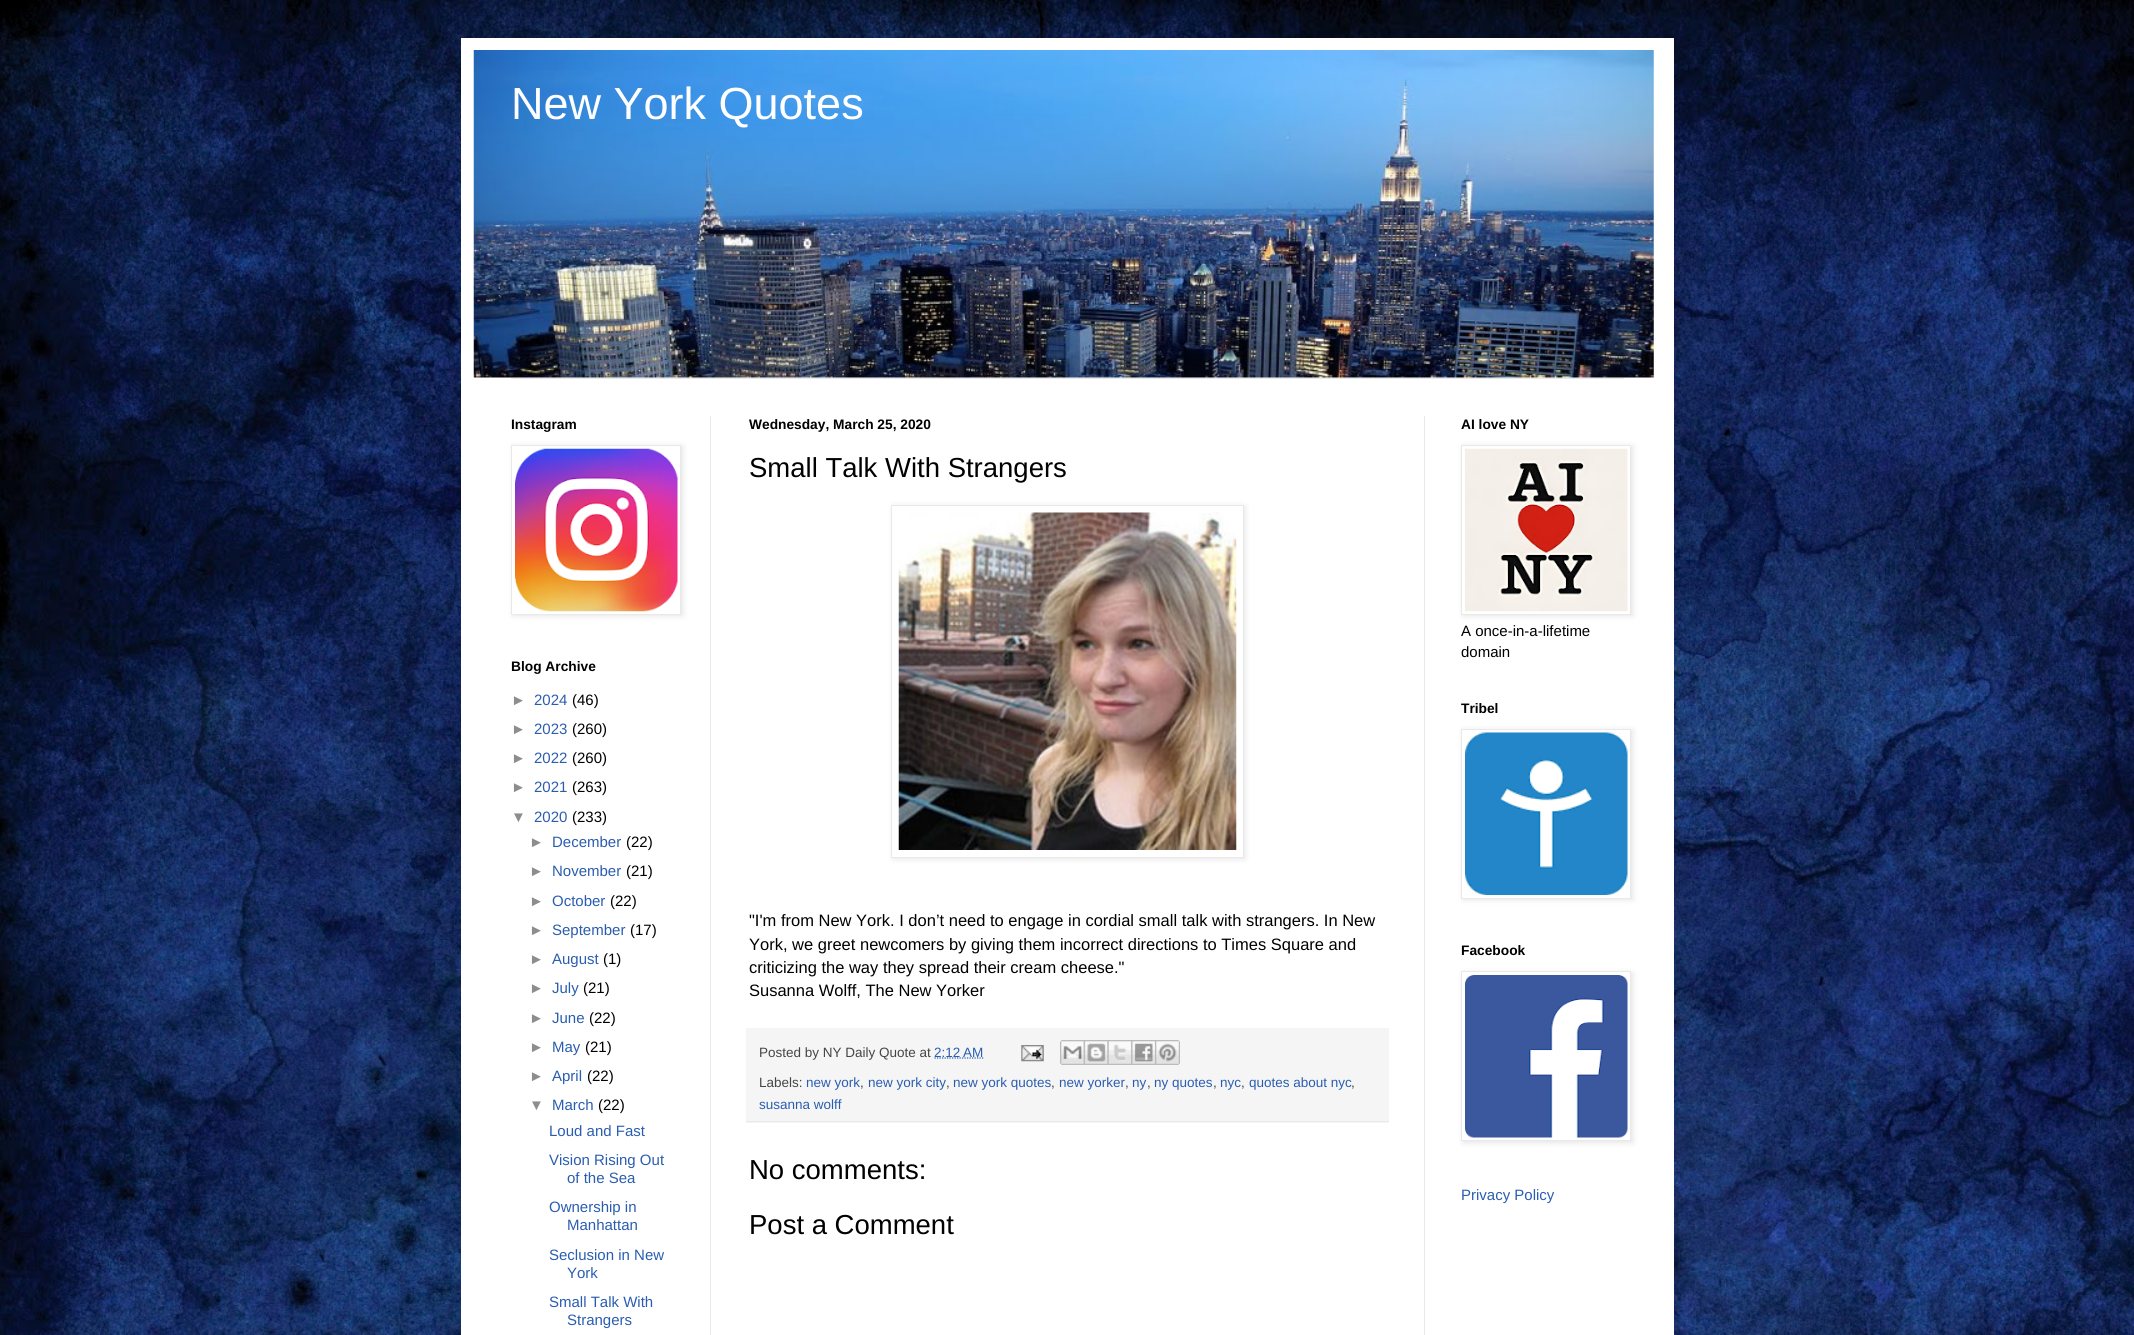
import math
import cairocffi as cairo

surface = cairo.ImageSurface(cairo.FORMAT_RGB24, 2134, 1335)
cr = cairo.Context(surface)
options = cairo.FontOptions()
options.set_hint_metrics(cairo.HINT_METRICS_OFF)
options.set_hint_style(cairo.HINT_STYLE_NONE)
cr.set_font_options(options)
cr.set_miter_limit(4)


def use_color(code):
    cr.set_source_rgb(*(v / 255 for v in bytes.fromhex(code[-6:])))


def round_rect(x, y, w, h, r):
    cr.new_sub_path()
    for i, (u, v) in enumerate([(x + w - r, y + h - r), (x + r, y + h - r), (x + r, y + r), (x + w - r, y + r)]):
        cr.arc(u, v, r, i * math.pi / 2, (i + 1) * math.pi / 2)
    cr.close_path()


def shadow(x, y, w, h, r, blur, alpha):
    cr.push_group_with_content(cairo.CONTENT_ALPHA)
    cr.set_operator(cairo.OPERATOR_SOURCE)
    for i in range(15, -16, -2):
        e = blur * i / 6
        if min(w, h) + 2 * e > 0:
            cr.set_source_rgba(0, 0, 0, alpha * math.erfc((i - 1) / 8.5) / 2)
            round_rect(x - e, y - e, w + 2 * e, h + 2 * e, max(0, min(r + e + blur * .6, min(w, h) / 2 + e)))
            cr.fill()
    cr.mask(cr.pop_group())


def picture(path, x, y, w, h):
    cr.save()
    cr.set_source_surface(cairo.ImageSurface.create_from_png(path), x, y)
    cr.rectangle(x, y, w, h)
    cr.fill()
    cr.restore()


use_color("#ffffff")
cr.paint()
picture("img1.png", 0, 0, 2134, 1335)
use_color("#000000")
shadow(461, 38, 1213, 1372, 0, 25, 0.15)
use_color("#ffffff")
cr.rectangle(461, 38, 1213, 1297)
cr.fill()
picture("img2.png", 473, 50, 1181, 328)
cr.select_font_face("Liberation Sans")
cr.set_font_size(45)
cr.move_to(511, 119)
cr.show_text("New York Quotes")
use_color("#e9e9e9")
cr.rectangle(511, 378, 1113, 1)
cr.fill()
cr.rectangle(710, 416, 1, 919)
cr.fill()
cr.rectangle(1424, 416, 1, 919)
cr.fill()
cr.select_font_face("Liberation Sans", cairo.FONT_SLANT_NORMAL, cairo.FONT_WEIGHT_BOLD)
cr.set_font_size(13.75)
use_color("#000000")
cr.move_to(511, 429)
cr.show_text("Instagram")
use_color("#000000")
shadow(513, 446, 170, 170, 0, 3, 0.1)
use_color("#ffffff")
cr.rectangle(511.5, 445.5, 169, 169)
cr.fill_preserve()
use_color("#e9e9e9")
cr.set_line_width(1)
cr.stroke()
picture("img3.png", 515, 448, 163, 164)
use_color("#000000")
cr.move_to(511, 671)
cr.show_text("Blog Archive")
cr.select_font_face("Liberation Sans")
cr.set_font_size(15)
use_color("#8d8d8d")
cr.move_to(511, 705)
cr.show_text("►")
use_color("#2a5db0")
cr.move_to(534, 705)
cr.show_text("2024")
use_color("#000000")
cr.move_to(572, 705)
cr.show_text("(46)")
use_color("#8d8d8d")
cr.move_to(511, 734)
cr.show_text("►")
use_color("#2a5db0")
cr.move_to(534, 734)
cr.show_text("2023")
use_color("#000000")
cr.move_to(572, 734)
cr.show_text("(260)")
use_color("#8d8d8d")
cr.move_to(511, 763)
cr.show_text("►")
use_color("#2a5db0")
cr.move_to(534, 763)
cr.show_text("2022")
use_color("#000000")
cr.move_to(572, 763)
cr.show_text("(260)")
use_color("#8d8d8d")
cr.move_to(511, 792)
cr.show_text("►")
use_color("#2a5db0")
cr.move_to(534, 792)
cr.show_text("2021")
use_color("#000000")
cr.move_to(572, 792)
cr.show_text("(263)")
use_color("#8d8d8d")
cr.move_to(511, 822)
cr.show_text("▼")
use_color("#2a5db0")
cr.move_to(534, 822)
cr.show_text("2020")
use_color("#000000")
cr.move_to(572, 822)
cr.show_text("(233)")
use_color("#8d8d8d")
cr.move_to(529, 847)
cr.show_text("►")
use_color("#2a5db0")
cr.move_to(552, 847)
cr.show_text("December")
use_color("#000000")
cr.move_to(626, 847)
cr.show_text("(22)")
use_color("#8d8d8d")
cr.move_to(529, 876)
cr.show_text("►")
use_color("#2a5db0")
cr.move_to(552, 876)
cr.show_text("November")
use_color("#000000")
cr.move_to(626, 876)
cr.show_text("(21)")
use_color("#8d8d8d")
cr.move_to(529, 906)
cr.show_text("►")
use_color("#2a5db0")
cr.move_to(552, 906)
cr.show_text("October")
use_color("#000000")
cr.move_to(610, 906)
cr.show_text("(22)")
use_color("#8d8d8d")
cr.move_to(529, 935)
cr.show_text("►")
use_color("#2a5db0")
cr.move_to(552, 935)
cr.show_text("September")
use_color("#000000")
cr.move_to(630, 935)
cr.show_text("(17)")
use_color("#8d8d8d")
cr.move_to(529, 964)
cr.show_text("►")
use_color("#2a5db0")
cr.move_to(552, 964)
cr.show_text("August")
use_color("#000000")
cr.move_to(603, 964)
cr.show_text("(1)")
use_color("#8d8d8d")
cr.move_to(529, 993)
cr.show_text("►")
use_color("#2a5db0")
cr.move_to(552, 993)
cr.show_text("July")
use_color("#000000")
cr.move_to(583, 993)
cr.show_text("(21)")
use_color("#8d8d8d")
cr.move_to(529, 1023)
cr.show_text("►")
use_color("#2a5db0")
cr.move_to(552, 1023)
cr.show_text("June")
use_color("#000000")
cr.move_to(589, 1023)
cr.show_text("(22)")
use_color("#8d8d8d")
cr.move_to(529, 1052)
cr.show_text("►")
use_color("#2a5db0")
cr.move_to(552, 1052)
cr.show_text("May")
use_color("#000000")
cr.move_to(585, 1052)
cr.show_text("(21)")
use_color("#8d8d8d")
cr.move_to(529, 1081)
cr.show_text("►")
use_color("#2a5db0")
cr.move_to(552, 1081)
cr.show_text("April")
use_color("#000000")
cr.move_to(587, 1081)
cr.show_text("(22)")
use_color("#8d8d8d")
cr.move_to(529, 1110)
cr.show_text("▼")
use_color("#2a5db0")
cr.move_to(552, 1110)
cr.show_text("March")
use_color("#000000")
cr.move_to(598, 1110)
cr.show_text("(22)")
use_color("#2a5db0")
cr.move_to(549, 1136)
cr.show_text("Loud and Fast")
cr.move_to(549, 1165)
cr.show_text("Vision Rising Out")
cr.move_to(567, 1183)
cr.show_text("of the Sea")
cr.move_to(549, 1212)
cr.show_text("Ownership in")
cr.move_to(567, 1230)
cr.show_text("Manhattan")
cr.move_to(549, 1260)
cr.show_text("Seclusion in New")
cr.move_to(567, 1278)
cr.show_text("York")
cr.move_to(549, 1307)
cr.show_text("Small Talk With")
cr.move_to(567, 1325)
cr.show_text("Strangers")
cr.select_font_face("Liberation Sans", cairo.FONT_SLANT_NORMAL, cairo.FONT_WEIGHT_BOLD)
cr.set_font_size(13.75)
use_color("#000000")
cr.move_to(749, 429)
cr.show_text("Wednesday, March 25, 2020")
cr.select_font_face("Liberation Sans")
cr.set_font_size(27.5)
cr.move_to(749, 477)
cr.show_text("Small Talk With Strangers")
use_color("#000000")
shadow(893, 506, 352, 353, 0, 3, 0.1)
use_color("#ffffff")
cr.rectangle(891.5, 505.5, 352, 352)
cr.fill_preserve()
use_color("#e9e9e9")
cr.stroke()
picture("img4.png", 898, 512, 339, 338)
cr.set_font_size(16.5)
use_color("#000000")
cr.move_to(749, 926)
cr.show_text("\"I'm from New York. I don’t need to engage in cordial small talk with strangers. In New")
cr.move_to(749, 950)
cr.show_text("York, we greet newcomers by giving them incorrect directions to Times Square and")
cr.move_to(749, 973)
cr.show_text("criticizing the way they spread their cream cheese.\"")
cr.move_to(749, 996)
cr.show_text("Susanna Wolff, The New Yorker")
use_color("#f5f5f5")
cr.rectangle(746, 1028, 643, 95)
cr.fill()
use_color("#e9e9e9")
cr.rectangle(746, 1121, 643, 1)
cr.fill()
cr.set_font_size(13.5)
use_color("#454545")
cr.move_to(759, 1057)
cr.show_text("Posted by NY Daily Quote at")
use_color("#2a5db0")
cr.move_to(934, 1057)
cr.show_text("2:12 AM")
cr.new_path()
cr.move_to(934.5, 1058)
cr.line_to(983.5, 1058)
cr.set_line_width(1.2)
cr.set_dash([1.25, 1.25])
cr.stroke()
picture("img5.png", 1021, 1045, 23, 17)
picture("img6.png", 1060, 1040, 24, 25)
picture("img7.png", 1083, 1040, 25, 25)
picture("img8.png", 1107, 1040, 25, 25)
picture("img9.png", 1131, 1040, 24, 25)
picture("img10.png", 1155, 1040, 25, 25)
use_color("#454545")
cr.move_to(759, 1087)
cr.show_text("Labels:")
use_color("#2a5db0")
cr.move_to(806, 1087)
cr.show_text("new york")
use_color("#454545")
cr.move_to(860, 1087)
cr.show_text(",")
use_color("#2a5db0")
cr.move_to(868, 1087)
cr.show_text("new york city")
use_color("#454545")
cr.move_to(946, 1087)
cr.show_text(",")
use_color("#2a5db0")
cr.move_to(953, 1087)
cr.show_text("new york quotes")
use_color("#454545")
cr.move_to(1051, 1087)
cr.show_text(",")
use_color("#2a5db0")
cr.move_to(1059, 1087)
cr.show_text("new yorker")
use_color("#454545")
cr.move_to(1125, 1087)
cr.show_text(",")
use_color("#2a5db0")
cr.move_to(1132, 1087)
cr.show_text("ny")
use_color("#454545")
cr.move_to(1147, 1087)
cr.show_text(",")
use_color("#2a5db0")
cr.move_to(1154, 1087)
cr.show_text("ny quotes")
use_color("#454545")
cr.move_to(1213, 1087)
cr.show_text(",")
use_color("#2a5db0")
cr.move_to(1220, 1087)
cr.show_text("nyc")
use_color("#454545")
cr.move_to(1241, 1087)
cr.show_text(",")
use_color("#2a5db0")
cr.move_to(1249, 1087)
cr.show_text("quotes about nyc")
use_color("#454545")
cr.move_to(1351, 1087)
cr.show_text(",")
use_color("#2a5db0")
cr.move_to(759, 1109)
cr.show_text("susanna wolff")
cr.set_font_size(27.5)
use_color("#000000")
cr.move_to(749, 1179)
cr.show_text("No comments:")
cr.move_to(749, 1234)
cr.show_text("Post a Comment")
cr.select_font_face("Liberation Sans", cairo.FONT_SLANT_NORMAL, cairo.FONT_WEIGHT_BOLD)
cr.set_font_size(13.75)
cr.move_to(1461, 429)
cr.show_text("AI love NY")
use_color("#000000")
shadow(1463, 446, 170, 170, 0, 3, 0.1)
use_color("#ffffff")
cr.rectangle(1461.5, 445.5, 169, 169)
cr.fill_preserve()
use_color("#e9e9e9")
cr.set_line_width(1)
cr.set_dash([])
cr.stroke()
picture("img11.png", 1465, 448, 163, 164)
cr.select_font_face("Liberation Sans")
cr.set_font_size(15)
use_color("#000000")
cr.move_to(1461, 636)
cr.show_text("A once-in-a-lifetime")
cr.move_to(1461, 657)
cr.show_text("domain")
cr.select_font_face("Liberation Sans", cairo.FONT_SLANT_NORMAL, cairo.FONT_WEIGHT_BOLD)
cr.set_font_size(13.75)
cr.move_to(1461, 713)
cr.show_text("Tribel")
use_color("#000000")
shadow(1463, 730, 170, 170, 0, 3, 0.1)
use_color("#ffffff")
cr.rectangle(1461.5, 729.5, 169, 169)
cr.fill_preserve()
use_color("#e9e9e9")
cr.stroke()
picture("img12.png", 1465, 732, 163, 163)
use_color("#000000")
cr.move_to(1461, 955)
cr.show_text("Facebook")
use_color("#000000")
shadow(1463, 973, 170, 170, 0, 3, 0.1)
use_color("#ffffff")
cr.rectangle(1461.5, 971.5, 169, 169)
cr.fill_preserve()
use_color("#e9e9e9")
cr.stroke()
picture("img13.png", 1465, 975, 163, 163)
cr.select_font_face("Liberation Sans")
cr.set_font_size(15)
use_color("#2a5db0")
cr.move_to(1461, 1200)
cr.show_text("Privacy Policy")
surface.write_to_png("result.png")
